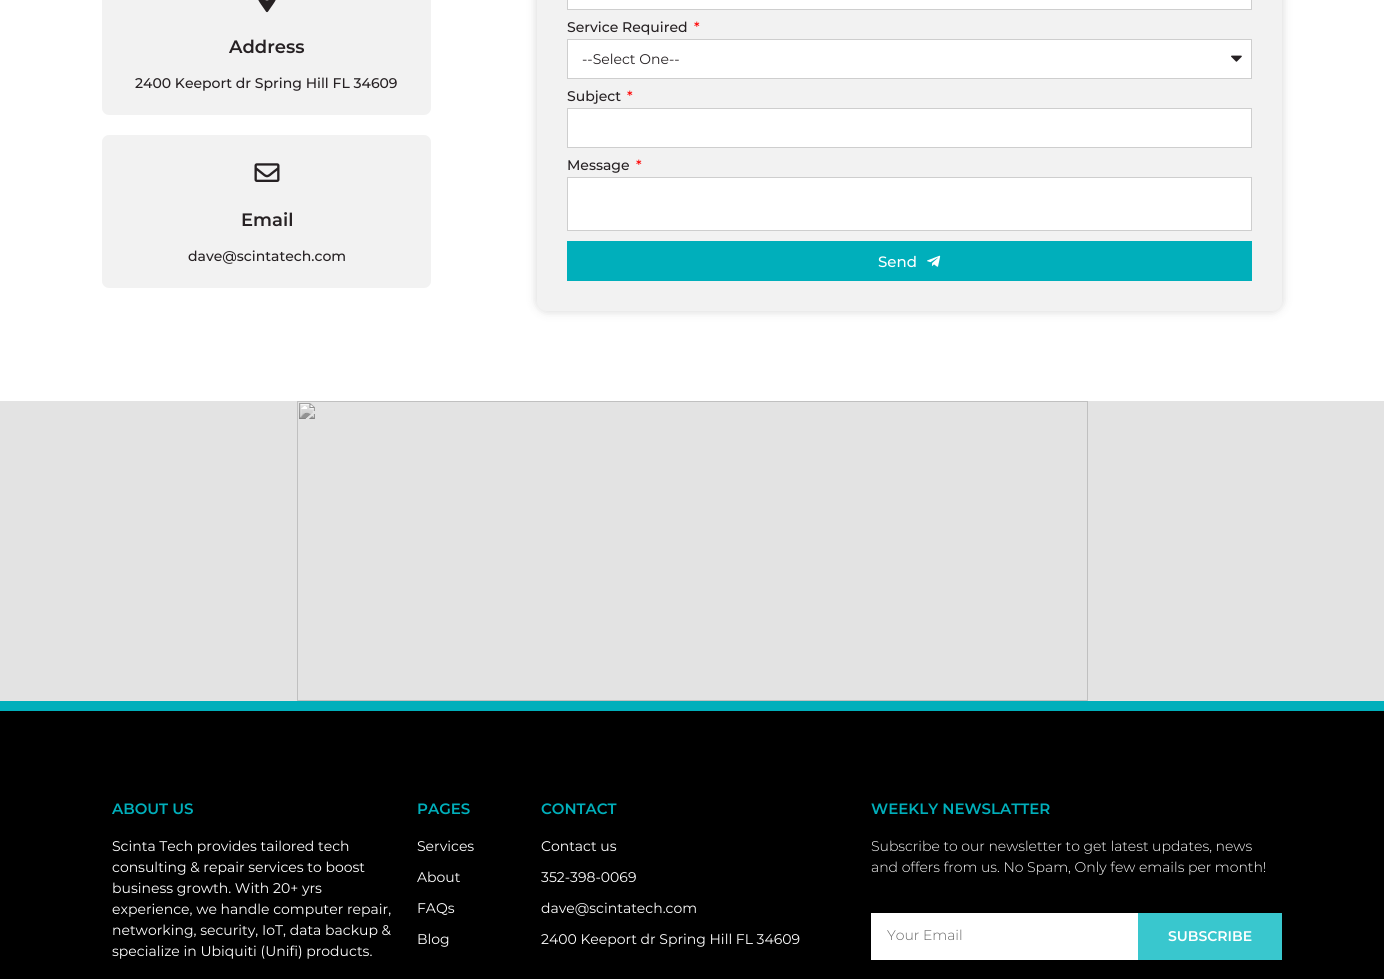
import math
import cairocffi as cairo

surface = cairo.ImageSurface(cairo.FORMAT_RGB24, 1384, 979)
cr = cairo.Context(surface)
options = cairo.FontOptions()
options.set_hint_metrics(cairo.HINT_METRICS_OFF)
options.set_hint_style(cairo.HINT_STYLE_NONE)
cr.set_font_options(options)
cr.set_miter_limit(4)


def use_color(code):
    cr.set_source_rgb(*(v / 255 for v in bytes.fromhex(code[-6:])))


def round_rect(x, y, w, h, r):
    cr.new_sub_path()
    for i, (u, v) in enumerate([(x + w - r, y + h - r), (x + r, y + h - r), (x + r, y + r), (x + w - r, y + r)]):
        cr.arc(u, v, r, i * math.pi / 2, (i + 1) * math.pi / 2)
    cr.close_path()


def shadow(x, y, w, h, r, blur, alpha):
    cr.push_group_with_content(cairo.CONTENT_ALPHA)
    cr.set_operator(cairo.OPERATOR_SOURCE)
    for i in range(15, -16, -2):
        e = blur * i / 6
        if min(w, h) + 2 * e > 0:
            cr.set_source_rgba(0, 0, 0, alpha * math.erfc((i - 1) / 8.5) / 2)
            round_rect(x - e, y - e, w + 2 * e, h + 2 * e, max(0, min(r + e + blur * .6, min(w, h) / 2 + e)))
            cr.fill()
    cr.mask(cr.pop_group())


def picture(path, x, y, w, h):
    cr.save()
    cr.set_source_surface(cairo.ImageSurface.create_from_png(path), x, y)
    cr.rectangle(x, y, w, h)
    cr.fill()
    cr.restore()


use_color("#ffffff")
cr.paint()
use_color("#f2f2f2")
round_rect(102, -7, 329, 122, 7)
cr.fill()
picture("img1.png", 258, 0, 18, 13)
cr.select_font_face("Montserrat SemiBold")
cr.set_font_size(18)
use_color("#262123")
cr.move_to(229, 53)
cr.show_text("Address")
cr.select_font_face("Montserrat Medium")
cr.set_font_size(14)
cr.move_to(135, 88)
cr.show_text("2400 Keeport dr Spring Hill FL 34609")
use_color("#f2f2f2")
round_rect(102, 135, 329, 153, 7)
cr.fill()
picture("img2.png", 254, 163, 26, 19)
cr.select_font_face("Montserrat SemiBold")
cr.set_font_size(18)
use_color("#262123")
cr.move_to(241, 226)
cr.show_text("Email")
cr.select_font_face("Montserrat Medium")
cr.set_font_size(14)
cr.move_to(188, 261)
cr.show_text("dave@scintatech.com")
use_color("#000000")
shadow(537, -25, 745, 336, 10, 5, 0.17)
use_color("#f2f2f2")
round_rect(537, -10, 745, 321, 10)
cr.fill()
use_color("#ffffff")
cr.rectangle(567.5, -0.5, 684, 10)
cr.fill_preserve()
use_color("#cecece")
cr.set_line_width(1)
cr.stroke()
use_color("#262123")
cr.move_to(567, 32)
cr.show_text("Service Required")
use_color("#ff0000")
cr.move_to(694, 32)
cr.show_text("*")
use_color("#ffffff")
cr.rectangle(567.5, 39.5, 684, 39)
cr.fill_preserve()
use_color("#cecece")
cr.stroke()
cr.select_font_face("Montserrat")
use_color("#262123")
cr.move_to(582, 64)
cr.show_text("--Select One--")
picture("img3.png", 1231, 55, 11, 7)
cr.select_font_face("Montserrat Medium")
cr.move_to(567, 101)
cr.show_text("Subject")
use_color("#ff0000")
cr.move_to(627, 101)
cr.show_text("*")
use_color("#ffffff")
cr.rectangle(567.5, 108.5, 684, 39)
cr.fill_preserve()
use_color("#cecece")
cr.stroke()
use_color("#262123")
cr.move_to(567, 170)
cr.show_text("Message")
use_color("#ff0000")
cr.move_to(636, 170)
cr.show_text("*")
use_color("#ffffff")
cr.rectangle(567.5, 177.5, 684, 53)
cr.fill_preserve()
use_color("#cecece")
cr.stroke()
use_color("#00afbb")
cr.rectangle(567, 241, 685, 40)
cr.fill()
cr.set_font_size(15)
use_color("#ffffff")
cr.move_to(878, 267)
cr.show_text("Send")
picture("img4.png", 927, 255, 14, 12)
picture("img5.png", 0, 401, 1384, 300)
use_color("#000000")
cr.rectangle(0, 711, 1384, 268)
cr.fill()
use_color("#00afbb")
cr.rectangle(0, 701, 1384, 10)
cr.fill()
cr.select_font_face("Montserrat SemiBold")
cr.move_to(112, 814)
cr.show_text("ABOUT US")
cr.select_font_face("Montserrat")
cr.set_font_size(14)
use_color("#ffffff")
cr.move_to(112, 851)
cr.show_text("Scinta Tech provides tailored tech")
cr.move_to(112, 872)
cr.show_text("consulting & repair services to boost")
cr.move_to(112, 893)
cr.show_text("business growth. With 20+ yrs")
cr.move_to(112, 914)
cr.show_text("experience, we handle computer repair,")
cr.move_to(112, 935)
cr.show_text("networking, security, IoT, data backup &")
cr.move_to(112, 956)
cr.show_text("specialize in Ubiquiti (Unifi) products.")
cr.select_font_face("Montserrat SemiBold")
cr.set_font_size(15)
use_color("#00afbb")
cr.move_to(417, 814)
cr.show_text("PAGES")
cr.select_font_face("Montserrat")
cr.set_font_size(14)
use_color("#ffffff")
cr.move_to(417, 851)
cr.show_text("Services")
cr.move_to(417, 882)
cr.show_text("About")
cr.move_to(417, 913)
cr.show_text("FAQs")
cr.move_to(417, 944)
cr.show_text("Blog")
cr.select_font_face("Montserrat SemiBold")
cr.set_font_size(15)
use_color("#00afbb")
cr.move_to(541, 814)
cr.show_text("CONTACT")
cr.select_font_face("Montserrat")
cr.set_font_size(14)
use_color("#ffffff")
cr.move_to(541, 851)
cr.show_text("Contact us")
cr.move_to(541, 882)
cr.show_text("352-398-0069")
cr.move_to(541, 913)
cr.show_text("dave@scintatech.com")
cr.move_to(541, 944)
cr.show_text("2400 Keeport dr Spring Hill FL 34609")
cr.select_font_face("Montserrat SemiBold")
cr.set_font_size(15)
use_color("#00afbb")
cr.move_to(871, 814)
cr.show_text("WEEKLY NEWSLATTER")
cr.select_font_face("Montserrat Light")
cr.set_font_size(14)
use_color("#ffffff")
cr.move_to(871, 851)
cr.show_text("Subscribe to our newsletter to get latest updates, news")
cr.move_to(871, 872)
cr.show_text("and offers from us. No Spam, Only few emails per month!")
cr.rectangle(871, 913, 267, 47)
cr.fill()
use_color("#666666")
cr.move_to(887, 940)
cr.show_text("Your Email")
use_color("#39c7ce")
cr.rectangle(1138, 913, 144, 47)
cr.fill()
cr.select_font_face("Montserrat SemiBold")
use_color("#ffffff")
cr.move_to(1168, 941)
cr.show_text("SUBSCRIBE")
surface.write_to_png("result.png")
